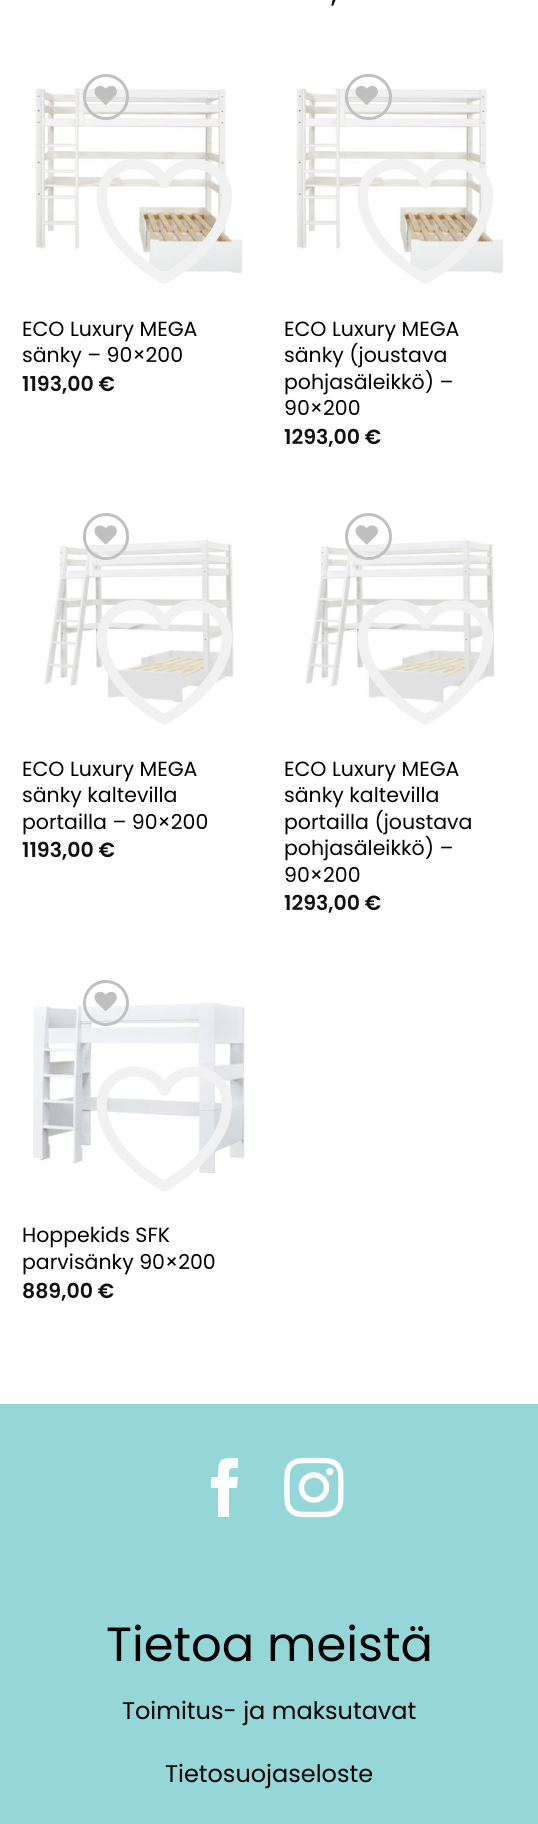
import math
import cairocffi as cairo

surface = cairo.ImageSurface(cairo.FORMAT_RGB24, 538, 1824)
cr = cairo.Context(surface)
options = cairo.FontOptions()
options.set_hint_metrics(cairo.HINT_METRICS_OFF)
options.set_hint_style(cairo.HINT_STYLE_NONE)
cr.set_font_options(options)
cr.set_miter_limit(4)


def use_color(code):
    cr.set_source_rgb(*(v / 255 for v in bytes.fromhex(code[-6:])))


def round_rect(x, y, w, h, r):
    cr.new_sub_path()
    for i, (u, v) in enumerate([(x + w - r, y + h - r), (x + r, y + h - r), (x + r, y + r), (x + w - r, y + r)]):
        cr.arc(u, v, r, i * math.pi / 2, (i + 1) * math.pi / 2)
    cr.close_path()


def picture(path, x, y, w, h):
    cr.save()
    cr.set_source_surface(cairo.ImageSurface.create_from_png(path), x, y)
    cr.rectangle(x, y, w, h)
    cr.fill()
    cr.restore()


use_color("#ffffff")
cr.paint()
cr.select_font_face("Poppins SemiBold")
cr.set_font_size(20.5)
use_color("#111111")
cr.move_to(331, 3)
cr.show_text(",")
picture("img2.png", 35, 88, 208, 186)
cr.arc(106, 97, 21.5, 0, 2 * math.pi)
use_color("#c0c0c0")
cr.set_line_width(3)
cr.stroke()
picture("img1.png", 94, 85, 23, 20)
cr.new_path()
cr.move_to(227, 195.5)
cr.curve_to(227, 161, 178, 152.5, 164.5, 183)
cr.curve_to(147.5, 145, 76, 166, 111.5, 229.5)
cr.curve_to(123, 249.5, 144, 268, 164.5, 278.5)
cr.curve_to(164.5, 278.5, 227, 245.5, 227, 195.5)
cr.close_path()
use_color("#f1f1f1")
cr.set_line_width(10.4)
cr.set_line_cap(cairo.LINE_CAP_ROUND)
cr.set_line_join(cairo.LINE_JOIN_ROUND)
cr.stroke()
cr.select_font_face("Poppins")
use_color("#000000")
cr.move_to(22, 336)
cr.show_text("ECO Luxury MEGA")
cr.move_to(22, 362)
cr.show_text("sänky – 90×200")
cr.select_font_face("Poppins SemiBold")
use_color("#111111")
cr.move_to(22, 391)
cr.show_text("1193,00 €")
picture("img2.png", 296, 88, 208, 186)
round_rect(346.5, 75.5, 44, 43, 21.5)
use_color("#c0c0c0")
cr.set_line_width(3)
cr.set_line_cap(cairo.LINE_CAP_BUTT)
cr.set_line_join(cairo.LINE_JOIN_MITER)
cr.stroke()
picture("img1.png", 355, 85, 23, 20)
cr.new_path()
cr.move_to(488, 195.5)
cr.curve_to(488, 161, 439, 152.5, 425.5, 183)
cr.curve_to(408.5, 145, 337, 166, 372.5, 229.5)
cr.curve_to(384, 249.5, 405, 268, 425.5, 278.5)
cr.curve_to(425.5, 278.5, 488, 245.5, 488, 195.5)
cr.close_path()
use_color("#f1f1f1")
cr.set_line_width(10.4)
cr.set_line_cap(cairo.LINE_CAP_ROUND)
cr.set_line_join(cairo.LINE_JOIN_ROUND)
cr.stroke()
cr.select_font_face("Poppins")
use_color("#000000")
cr.move_to(284, 336)
cr.show_text("ECO Luxury MEGA")
cr.move_to(284, 362)
cr.show_text("sänky (joustava")
cr.move_to(284, 389)
cr.show_text("pohjasäleikkö) –")
cr.move_to(284, 415)
cr.show_text("90×200")
cr.select_font_face("Poppins SemiBold")
use_color("#111111")
cr.move_to(284, 444)
cr.show_text("1293,00 €")
picture("img4.png", 44, 539, 190, 164)
round_rect(84.5, 514.5, 43, 44, 21.5)
use_color("#c0c0c0")
cr.set_line_width(3)
cr.set_line_cap(cairo.LINE_CAP_BUTT)
cr.set_line_join(cairo.LINE_JOIN_MITER)
cr.stroke()
picture("img3.png", 94, 525, 23, 20)
cr.new_path()
cr.move_to(227, 636.5)
cr.curve_to(227, 602, 178, 593.5, 164.5, 624)
cr.curve_to(147.5, 586, 76, 607, 111.5, 670.5)
cr.curve_to(123, 690.5, 144, 709, 164.5, 719.5)
cr.curve_to(164.5, 719.5, 227, 686.5, 227, 636.5)
cr.close_path()
use_color("#f1f1f1")
cr.set_line_width(10.4)
cr.set_line_cap(cairo.LINE_CAP_ROUND)
cr.set_line_join(cairo.LINE_JOIN_ROUND)
cr.stroke()
cr.select_font_face("Poppins")
use_color("#000000")
cr.move_to(22, 776)
cr.show_text("ECO Luxury MEGA")
cr.move_to(22, 802)
cr.show_text("sänky kaltevilla")
cr.move_to(22, 829)
cr.show_text("portailla – 90×200")
cr.select_font_face("Poppins SemiBold")
use_color("#111111")
cr.move_to(22, 857)
cr.show_text("1193,00 €")
picture("img4.png", 305, 539, 190, 164)
cr.arc(368.5, 536.5, 22, 0, 2 * math.pi)
use_color("#c0c0c0")
cr.set_line_width(3)
cr.set_line_cap(cairo.LINE_CAP_BUTT)
cr.set_line_join(cairo.LINE_JOIN_MITER)
cr.stroke()
picture("img3.png", 355, 525, 23, 20)
cr.new_path()
cr.move_to(488, 636.5)
cr.curve_to(488, 602, 439, 593.5, 425.5, 624)
cr.curve_to(408.5, 586, 337, 607, 372.5, 670.5)
cr.curve_to(384, 690.5, 405, 709, 425.5, 719.5)
cr.curve_to(425.5, 719.5, 488, 686.5, 488, 636.5)
cr.close_path()
use_color("#f1f1f1")
cr.set_line_width(10.4)
cr.set_line_cap(cairo.LINE_CAP_ROUND)
cr.set_line_join(cairo.LINE_JOIN_ROUND)
cr.stroke()
cr.select_font_face("Poppins")
use_color("#000000")
cr.move_to(284, 776)
cr.show_text("ECO Luxury MEGA")
cr.move_to(284, 802)
cr.show_text("sänky kaltevilla")
cr.move_to(284, 829)
cr.show_text("portailla (joustava")
cr.move_to(284, 855)
cr.show_text("pohjasäleikkö) –")
cr.move_to(284, 882)
cr.show_text("90×200")
cr.select_font_face("Poppins SemiBold")
use_color("#111111")
cr.move_to(284, 910)
cr.show_text("1293,00 €")
picture("img6.png", 33, 1002, 213, 173)
cr.arc(106, 1003, 21.5, 0, 2 * math.pi)
use_color("#c0c0c0")
cr.set_line_width(3)
cr.set_line_cap(cairo.LINE_CAP_BUTT)
cr.set_line_join(cairo.LINE_JOIN_MITER)
cr.stroke()
picture("img5.png", 94, 991, 23, 20)
cr.new_path()
cr.move_to(227, 1103)
cr.curve_to(227, 1068.5, 178, 1060, 164.5, 1090.5)
cr.curve_to(147.5, 1052.5, 76, 1073.5, 111.5, 1137)
cr.curve_to(123, 1157, 144, 1175.5, 164.5, 1186)
cr.curve_to(164.5, 1186, 227, 1153, 227, 1103)
cr.close_path()
use_color("#f1f1f1")
cr.set_line_width(10.4)
cr.set_line_cap(cairo.LINE_CAP_ROUND)
cr.set_line_join(cairo.LINE_JOIN_ROUND)
cr.stroke()
cr.select_font_face("Poppins")
use_color("#000000")
cr.move_to(22, 1242)
cr.show_text("Hoppekids SFK")
cr.move_to(22, 1269)
cr.show_text("parvisänky 90×200")
cr.select_font_face("Poppins SemiBold")
use_color("#111111")
cr.move_to(22, 1298)
cr.show_text("889,00 €")
use_color("#95d6d8")
cr.rectangle(0, 1404, 538, 420)
cr.fill()
use_color("#ffffff")
cr.new_path()
cr.move_to(229, 1517)
cr.line_to(218, 1517)
cr.line_to(218, 1488)
cr.line_to(211, 1488)
cr.line_to(211, 1477)
cr.line_to(218, 1477)
cr.curve_to(218, 1458, 220, 1458, 238, 1458)
cr.line_to(238, 1468)
cr.curve_to(228, 1468, 229, 1468, 229, 1477)
cr.line_to(238, 1477)
cr.line_to(237, 1488)
cr.line_to(229, 1488)
cr.close_path()
cr.fill()
picture("img7.png", 284, 1457, 60, 61)
cr.select_font_face("Poppins")
cr.set_font_size(48)
use_color("#000000")
cr.move_to(106, 1661)
cr.show_text("Tietoa meistä")
cr.set_font_size(24)
cr.move_to(122, 1719)
cr.show_text("Toimitus- ja maksutavat")
cr.move_to(165, 1782)
cr.show_text("Tietosuojaseloste")
surface.write_to_png("result.png")
